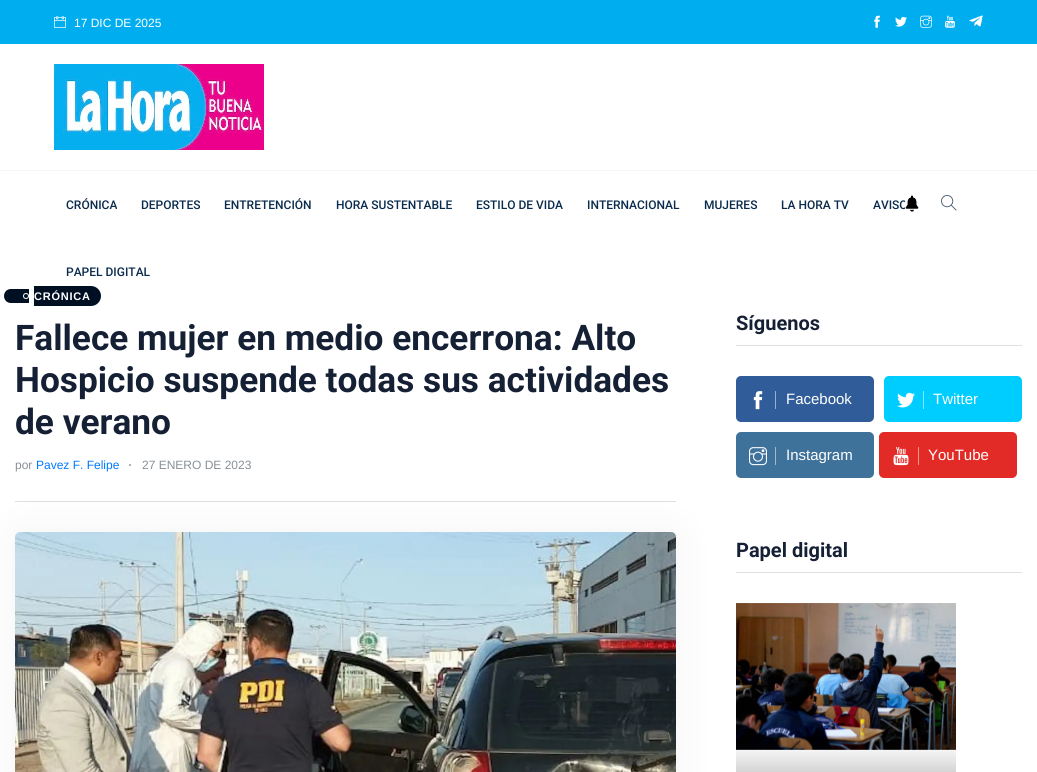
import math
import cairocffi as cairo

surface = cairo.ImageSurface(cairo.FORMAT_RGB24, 1037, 772)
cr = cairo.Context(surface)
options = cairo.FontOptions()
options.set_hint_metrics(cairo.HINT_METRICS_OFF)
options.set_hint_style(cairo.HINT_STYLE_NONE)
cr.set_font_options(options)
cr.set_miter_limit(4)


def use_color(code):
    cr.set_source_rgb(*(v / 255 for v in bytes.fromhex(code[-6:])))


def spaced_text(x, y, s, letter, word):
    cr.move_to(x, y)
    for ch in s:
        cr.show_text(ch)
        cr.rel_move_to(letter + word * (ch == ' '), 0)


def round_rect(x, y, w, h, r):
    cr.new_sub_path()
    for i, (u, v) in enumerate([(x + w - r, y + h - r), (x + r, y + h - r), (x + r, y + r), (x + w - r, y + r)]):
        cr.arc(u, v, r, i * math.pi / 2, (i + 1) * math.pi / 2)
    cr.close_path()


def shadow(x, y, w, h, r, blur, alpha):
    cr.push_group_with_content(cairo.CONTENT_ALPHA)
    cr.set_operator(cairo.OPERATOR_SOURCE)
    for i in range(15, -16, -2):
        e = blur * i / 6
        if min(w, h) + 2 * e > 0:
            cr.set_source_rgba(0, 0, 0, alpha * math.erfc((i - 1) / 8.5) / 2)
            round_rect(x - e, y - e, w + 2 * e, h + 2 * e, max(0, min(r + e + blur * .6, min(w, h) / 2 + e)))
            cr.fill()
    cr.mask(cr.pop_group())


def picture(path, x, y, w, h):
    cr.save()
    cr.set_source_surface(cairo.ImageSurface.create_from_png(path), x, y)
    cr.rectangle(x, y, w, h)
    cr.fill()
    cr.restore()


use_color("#ffffff")
cr.paint()
use_color("#00aeef")
cr.rectangle(0, 0, 1037, 44)
cr.fill()
picture("img1.png", 54, 16, 12, 12)
cr.select_font_face("Arimo")
cr.set_font_size(12)
use_color("#ffffff")
cr.move_to(74, 27)
cr.show_text("17 DIC DE 2025")
picture("img2.png", 874, 15, 6, 13)
picture("img3.png", 895, 16, 12, 11)
picture("img4.png", 920, 15, 12, 13)
picture("img5.png", 945, 15, 10, 13)
picture("img6.png", 969, 15, 14, 12)
picture("img7.png", 54, 64, 210, 86)
use_color("#f4f5f9")
cr.rectangle(0, 170, 1037, 1)
cr.fill()
cr.select_font_face("Roboto Medium")
use_color("#092b4d")
cr.move_to(66, 209)
cr.show_text("CRÓNICA")
cr.move_to(141, 209)
cr.show_text("DEPORTES")
cr.move_to(224, 209)
cr.show_text("ENTRETENCIÓN")
cr.move_to(336, 209)
cr.show_text("HORA SUSTENTABLE")
cr.move_to(476, 209)
cr.show_text("ESTILO DE VIDA")
cr.move_to(587, 209)
cr.show_text("INTERNACIONAL")
cr.move_to(704, 209)
cr.show_text("MUJERES")
cr.move_to(781, 209)
cr.show_text("LA HORA TV")
cr.move_to(873, 209)
cr.show_text("AVISO")
cr.move_to(66, 276)
cr.show_text("PAPEL DIGITAL")
use_color("#ffffff")
cr.rectangle(905, 200, 2, 9)
cr.fill()
picture("img8.png", 905, 195, 14, 17)
picture("img9.png", 941, 195, 16, 16)
use_color("#010f22")
cr.new_path()
cr.move_to(11, 289)
cr.line_to(29, 289)
cr.line_to(29, 303)
cr.line_to(11, 303)
cr.curve_to(7, 303, 4, 300, 4, 296)
cr.curve_to(4, 292, 7, 289, 11, 289)
cr.close_path()
cr.fill()
cr.new_path()
cr.move_to(34, 286)
cr.line_to(91, 286)
cr.curve_to(96.5, 286, 101, 290.5, 101, 296)
cr.curve_to(101, 301.5, 96.5, 306, 91, 306)
cr.line_to(34, 306)
cr.close_path()
cr.fill()
cr.arc(26, 296, 2.5, 0, 2 * math.pi)
use_color("#ffffff")
cr.set_line_width(1)
cr.stroke()
cr.select_font_face("Arimo", cairo.FONT_SLANT_NORMAL, cairo.FONT_WEIGHT_BOLD)
cr.set_font_size(11)
spaced_text(34, 300, "CRÓNICA", 0.75, 0)
cr.select_font_face("Roboto", cairo.FONT_SLANT_NORMAL, cairo.FONT_WEIGHT_BOLD)
cr.set_font_size(35.25)
use_color("#152035")
cr.move_to(15, 350)
cr.show_text("Fallece mujer en medio encerrona: Alto")
cr.move_to(15, 392)
cr.show_text("Hospicio suspende todas sus actividades")
cr.move_to(15, 434)
cr.show_text("de verano")
cr.select_font_face("Arimo")
cr.set_font_size(12)
use_color("#889097")
cr.move_to(15, 469)
cr.show_text("por")
use_color("#007aff")
cr.move_to(36, 469)
cr.show_text("Pavez F. Felipe")
use_color("#999999")
cr.new_path()
cr.arc(130, 465, 1, 0, 2 * math.pi)
cr.fill()
use_color("#889097")
cr.move_to(142, 469)
cr.show_text("27 ENERO DE 2023")
use_color("#e0dede")
cr.rectangle(15, 501, 661, 1)
cr.fill()
use_color("#000000")
shadow(15, 532, 661, 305, 5, 20, 0.05)
picture("img10.png", 15, 532, 661, 240)
cr.select_font_face("Roboto", cairo.FONT_SLANT_NORMAL, cairo.FONT_WEIGHT_BOLD)
cr.set_font_size(20)
use_color("#152035")
cr.move_to(736, 330)
cr.show_text("Síguenos")
use_color("#e0dede")
cr.rectangle(736, 345, 286, 1)
cr.fill()
use_color("#305c99")
round_rect(736, 376, 138, 46, 5)
cr.fill()
use_color("#98aecc")
cr.rectangle(775, 391, 1, 18)
cr.fill()
picture("img11.png", 753, 391, 10, 19)
cr.select_font_face("Arimo")
cr.set_font_size(15)
use_color("#ffffff")
cr.move_to(786, 404)
cr.show_text("Facebook")
use_color("#00cdff")
round_rect(884, 376, 138, 46, 5)
cr.fill()
use_color("#80e6ff")
cr.rectangle(923, 391, 1, 18)
cr.fill()
picture("img12.png", 897, 392, 18, 16)
use_color("#ffffff")
cr.move_to(933, 404)
cr.show_text("Twitter")
use_color("#3f729b")
round_rect(736, 432, 138, 46, 5)
cr.fill()
use_color("#9fb9cd")
cr.rectangle(775, 447, 1, 18)
cr.fill()
picture("img13.png", 749, 447, 18, 19)
use_color("#ffffff")
cr.move_to(786, 460)
cr.show_text("Instagram")
use_color("#e22b26")
round_rect(879, 432, 138, 46, 5)
cr.fill()
use_color("#f19593")
cr.rectangle(918, 447, 1, 18)
cr.fill()
picture("img14.png", 893, 447, 16, 19)
use_color("#ffffff")
cr.move_to(928, 460)
cr.show_text("YouTube")
cr.select_font_face("Roboto", cairo.FONT_SLANT_NORMAL, cairo.FONT_WEIGHT_BOLD)
cr.set_font_size(20)
use_color("#152035")
cr.move_to(736, 557)
cr.show_text("Papel digital")
use_color("#e0dede")
cr.rectangle(736, 572, 286, 1)
cr.fill()
gradient = cairo.LinearGradient(846, 603, 846, 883)
gradient.add_color_stop_rgba(0.5, 1, 1, 1, 1)
gradient.add_color_stop_rgba(1, 0.2, 0.2, 0.2, 1)
cr.set_source(gradient)
cr.rectangle(736, 749, 220, 23)
cr.fill()
picture("img15.png", 736, 603, 220, 147)
surface.write_to_png("result.png")
